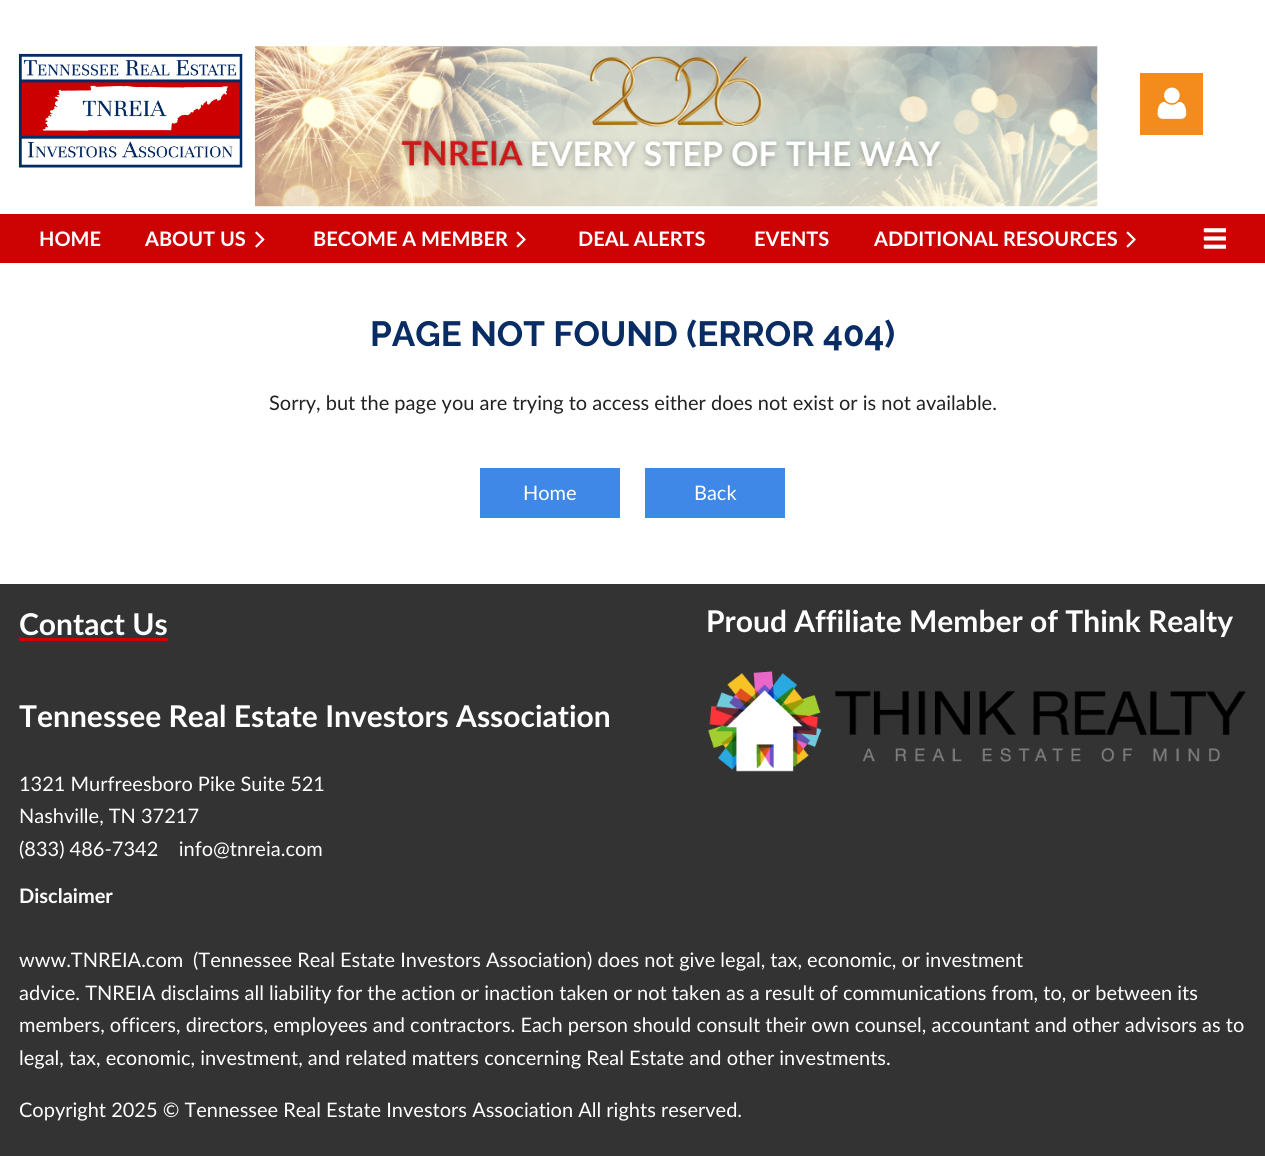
import math
import cairocffi as cairo

surface = cairo.ImageSurface(cairo.FORMAT_RGB24, 1265, 1156)
cr = cairo.Context(surface)
options = cairo.FontOptions()
options.set_hint_metrics(cairo.HINT_METRICS_OFF)
options.set_hint_style(cairo.HINT_STYLE_NONE)
cr.set_font_options(options)
cr.set_miter_limit(4)


def use_color(code):
    cr.set_source_rgb(*(v / 255 for v in bytes.fromhex(code[-6:])))


def picture(path, x, y, w, h):
    cr.save()
    cr.set_source_surface(cairo.ImageSurface.create_from_png(path), x, y)
    cr.rectangle(x, y, w, h)
    cr.fill()
    cr.restore()


use_color("#ffffff")
cr.paint()
picture("img1.png", 18, 53, 225, 115)
picture("img2.png", 255, 46, 843, 161)
use_color("#f38c1c")
cr.rectangle(1140, 73, 63, 62)
cr.fill()
picture("img3.png", 1157, 87, 30, 32)
use_color("#cc0302")
cr.rectangle(0, 214, 1265, 49)
cr.fill()
cr.select_font_face("Lato", cairo.FONT_SLANT_NORMAL, cairo.FONT_WEIGHT_BOLD)
cr.set_font_size(20)
use_color("#ffffff")
cr.move_to(39, 246)
cr.show_text("HOME")
cr.move_to(145, 246)
cr.show_text("ABOUT US")
picture("img4.png", 255, 231, 10, 17)
cr.move_to(313, 246)
cr.show_text("BECOME A MEMBER")
picture("img5.png", 516, 231, 10, 17)
cr.move_to(578, 246)
cr.show_text("DEAL ALERTS")
cr.move_to(754, 246)
cr.show_text("EVENTS")
cr.move_to(874, 246)
cr.show_text("ADDITIONAL RESOURCES")
picture("img5.png", 1126, 231, 10, 17)
picture("img6.png", 1203, 228, 23, 21)
cr.select_font_face("Raleway", cairo.FONT_SLANT_NORMAL, cairo.FONT_WEIGHT_BOLD)
cr.set_font_size(35)
use_color("#082c63")
cr.move_to(370, 346)
cr.show_text("PAGE NOT FOUND (ERROR 404)")
cr.select_font_face("Lato")
cr.set_font_size(20)
use_color("#222222")
cr.move_to(269, 410)
cr.show_text("Sorry, but the page you are trying to access either does not exist or is not available.")
use_color("#3f88e8")
cr.rectangle(480, 468, 140, 50)
cr.fill()
use_color("#ffffff")
cr.move_to(523, 500)
cr.show_text("Home")
use_color("#3f88e8")
cr.rectangle(645, 468, 140, 50)
cr.fill()
use_color("#ffffff")
cr.move_to(694, 500)
cr.show_text("Back")
use_color("#333333")
cr.rectangle(0, 584, 1265, 572)
cr.fill()
cr.select_font_face("Lato", cairo.FONT_SLANT_NORMAL, cairo.FONT_WEIGHT_BOLD)
cr.set_font_size(30)
use_color("#ffffff")
cr.move_to(19, 635)
cr.show_text("Contact Us")
use_color("#cc0302")
cr.rectangle(19, 638, 149, 3)
cr.fill()
use_color("#ffffff")
cr.move_to(19, 727)
cr.show_text("Tennessee Real Estate Investors Association")
cr.select_font_face("Lato")
cr.set_font_size(20)
cr.move_to(19, 791)
cr.show_text("1321 Murfreesboro Pike Suite 521")
cr.move_to(19, 823)
cr.show_text("Nashville, TN 37217")
cr.move_to(19, 856)
cr.show_text("(833) 486-7342    info@tnreia.com")
cr.select_font_face("Lato", cairo.FONT_SLANT_NORMAL, cairo.FONT_WEIGHT_BOLD)
cr.set_font_size(30)
cr.move_to(706, 632)
cr.show_text("Proud Affiliate Member of Think Realty")
picture("img7.png", 708, 671, 538, 101)
cr.set_font_size(20)
cr.move_to(19, 903)
cr.show_text("Disclaimer")
cr.select_font_face("Lato")
cr.move_to(19, 967)
cr.show_text("www.TNREIA.com")
cr.move_to(193, 967)
cr.show_text("(Tennessee Real Estate Investors Association) does not give legal, tax, economic, or investment")
cr.move_to(19, 1000)
cr.show_text("advice. TNREIA disclaims all liability for the action or inaction taken or not taken as a result of communications from, to, or between its")
cr.move_to(19, 1032)
cr.show_text("members, officers, directors, employees and contractors. Each person should consult their own counsel, accountant and other advisors as to")
cr.move_to(19, 1065)
cr.show_text("legal, tax, economic, investment, and related matters concerning Real Estate and other investments.")
cr.move_to(19, 1117)
cr.show_text("Copyright 2025 © Tennessee Real Estate Investors Association All rights reserved.")
surface.write_to_png("result.png")
